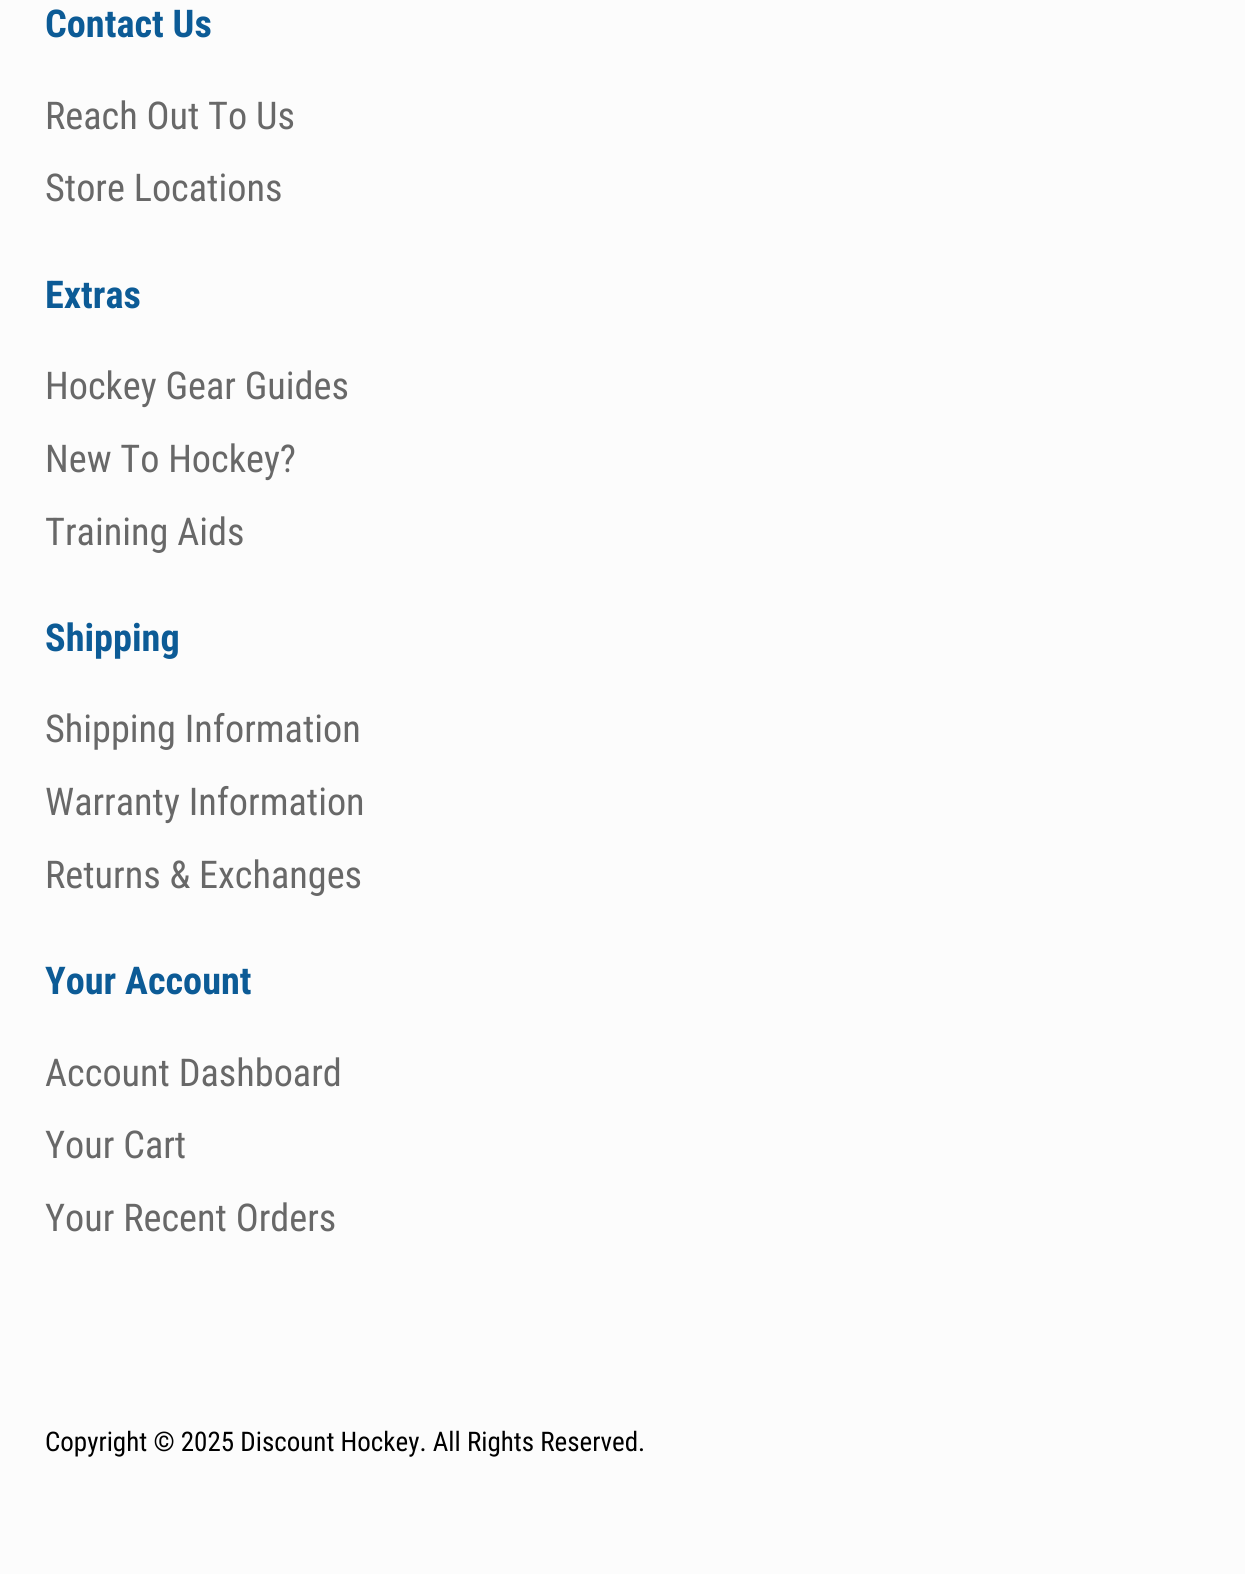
import math
import cairocffi as cairo

surface = cairo.ImageSurface(cairo.FORMAT_RGB24, 1245, 1574)
cr = cairo.Context(surface)
options = cairo.FontOptions()
options.set_hint_metrics(cairo.HINT_METRICS_OFF)
options.set_hint_style(cairo.HINT_STYLE_NONE)
cr.set_font_options(options)
cr.set_miter_limit(4)


def use_color(code):
    cr.set_source_rgb(*(v / 255 for v in bytes.fromhex(code[-6:])))


use_color("#fcfcfc")
cr.paint()
cr.select_font_face("Roboto Condensed", cairo.FONT_SLANT_NORMAL, cairo.FONT_WEIGHT_BOLD)
cr.set_font_size(38.25)
use_color("#0c5b96")
cr.move_to(45, 37)
cr.show_text("Contact Us")
cr.select_font_face("Roboto Condensed")
use_color("#686868")
cr.move_to(45, 129)
cr.show_text("Reach Out To Us")
cr.move_to(45, 201)
cr.show_text("Store Locations")
cr.select_font_face("Roboto Condensed", cairo.FONT_SLANT_NORMAL, cairo.FONT_WEIGHT_BOLD)
use_color("#0c5b96")
cr.move_to(45, 308)
cr.show_text("Extras")
cr.select_font_face("Roboto Condensed")
use_color("#686868")
cr.move_to(45, 399)
cr.show_text("Hockey Gear Guides")
cr.move_to(45, 472)
cr.show_text("New To Hockey?")
cr.move_to(45, 545)
cr.show_text("Training Aids")
cr.select_font_face("Roboto Condensed", cairo.FONT_SLANT_NORMAL, cairo.FONT_WEIGHT_BOLD)
use_color("#0c5b96")
cr.move_to(45, 651)
cr.show_text("Shipping")
cr.select_font_face("Roboto Condensed")
use_color("#686868")
cr.move_to(45, 742)
cr.show_text("Shipping Information")
cr.move_to(45, 815)
cr.show_text("Warranty Information")
cr.move_to(45, 888)
cr.show_text("Returns & Exchanges")
cr.select_font_face("Roboto Condensed", cairo.FONT_SLANT_NORMAL, cairo.FONT_WEIGHT_BOLD)
use_color("#0c5b96")
cr.move_to(45, 994)
cr.show_text("Your Account")
cr.select_font_face("Roboto Condensed")
use_color("#686868")
cr.move_to(45, 1086)
cr.show_text("Account Dashboard")
cr.move_to(45, 1158)
cr.show_text("Your Cart")
cr.move_to(45, 1231)
cr.show_text("Your Recent Orders")
cr.set_font_size(27)
use_color("#000000")
cr.move_to(45, 1451)
cr.show_text("Copyright © 2025 Discount Hockey. All Rights Reserved.")
surface.write_to_png("result.png")
